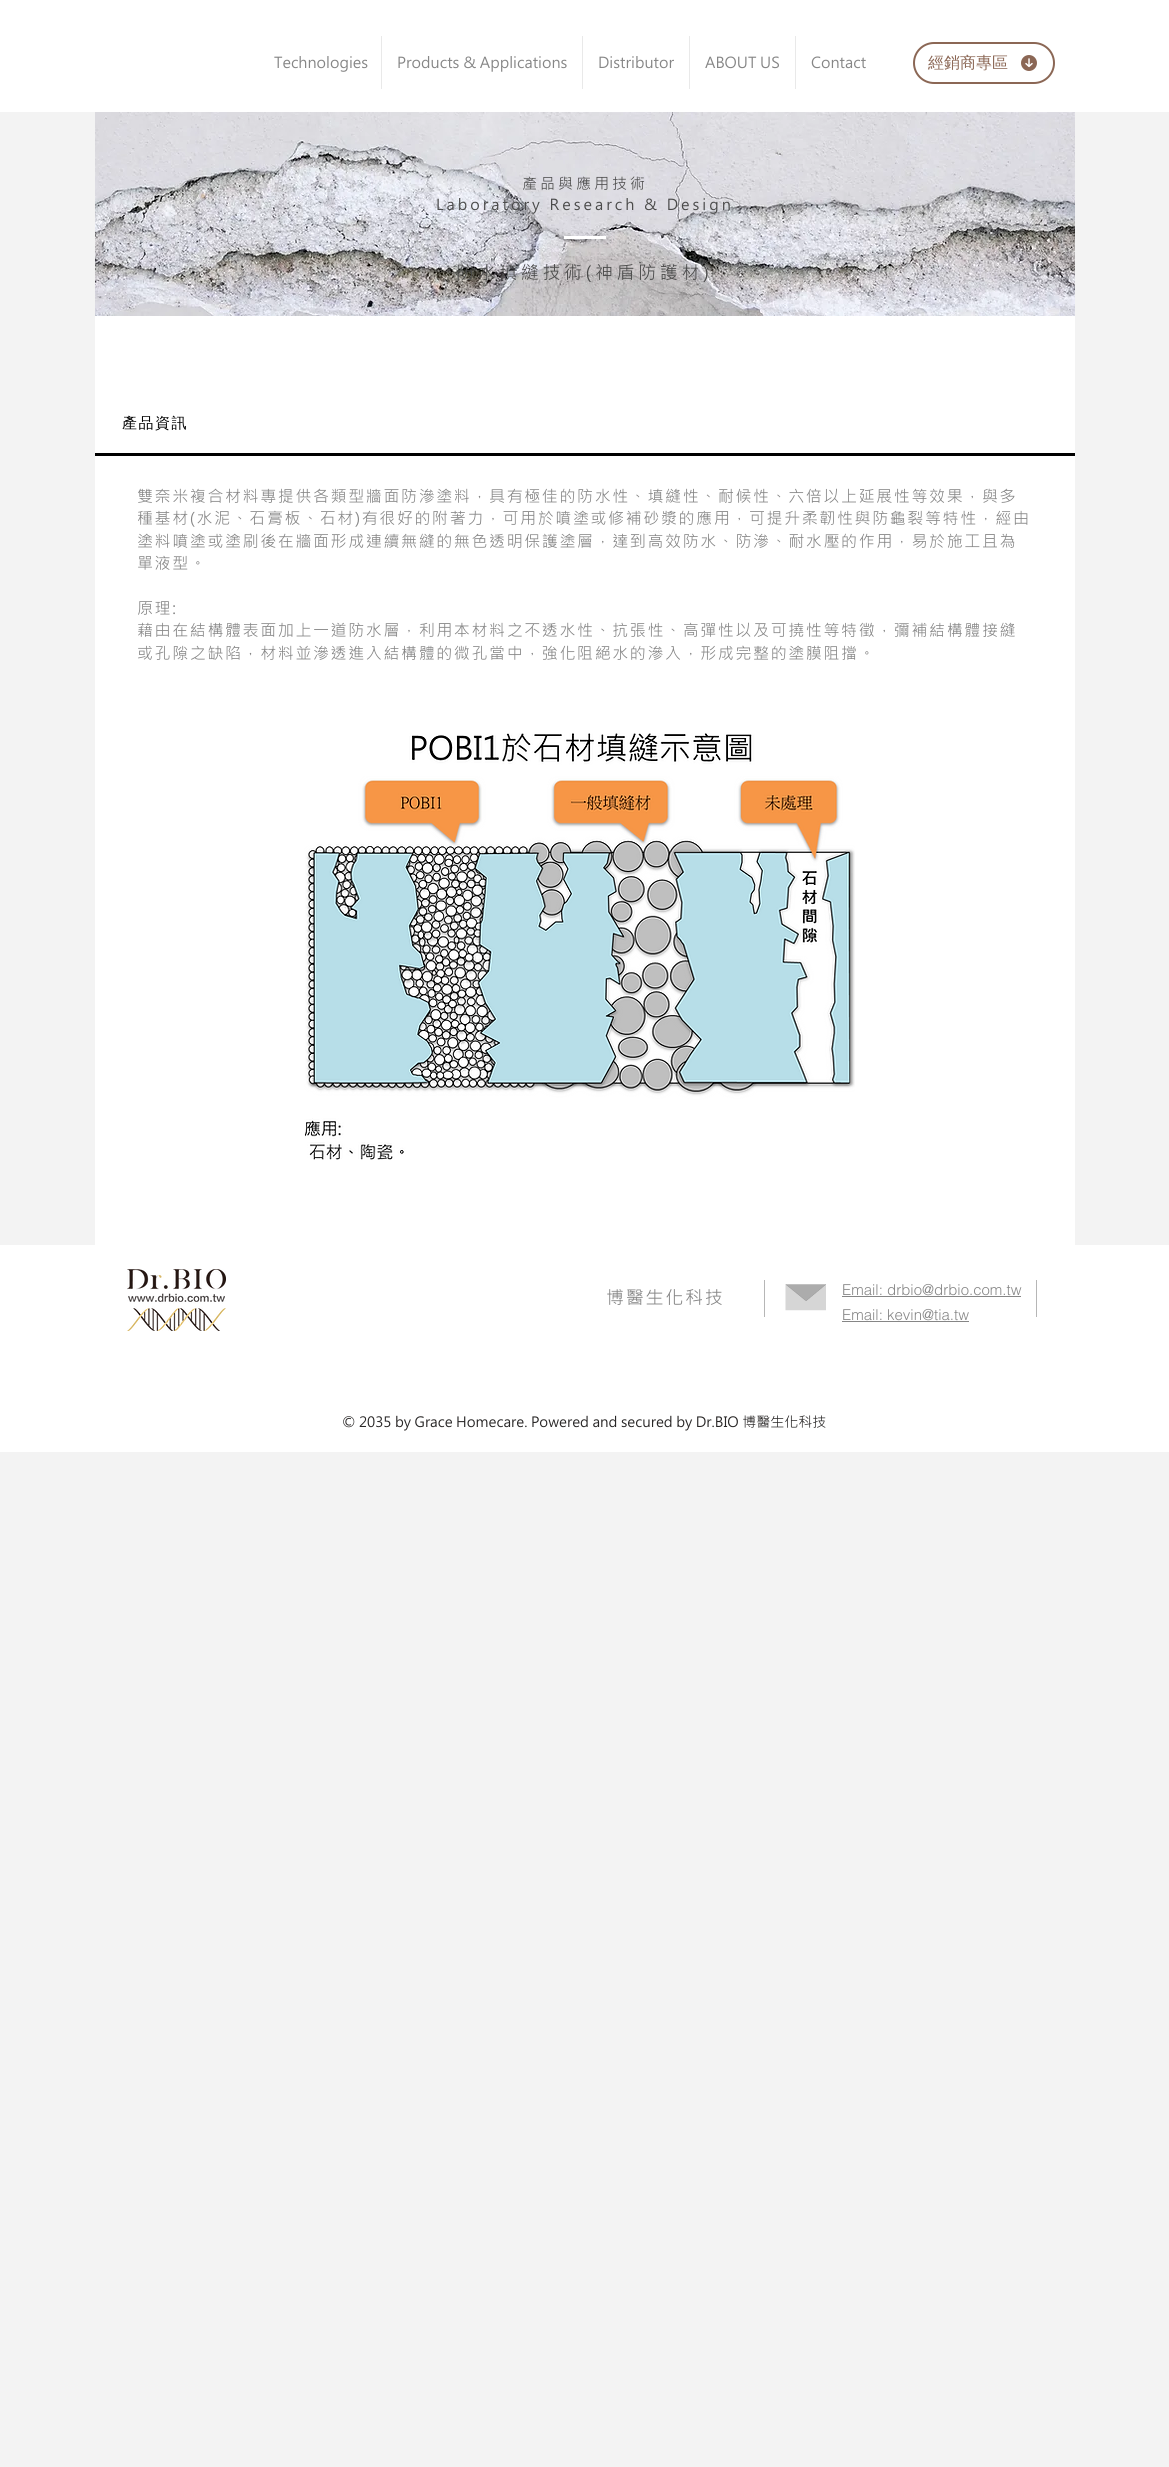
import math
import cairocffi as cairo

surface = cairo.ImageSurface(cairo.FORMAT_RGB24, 1169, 2467)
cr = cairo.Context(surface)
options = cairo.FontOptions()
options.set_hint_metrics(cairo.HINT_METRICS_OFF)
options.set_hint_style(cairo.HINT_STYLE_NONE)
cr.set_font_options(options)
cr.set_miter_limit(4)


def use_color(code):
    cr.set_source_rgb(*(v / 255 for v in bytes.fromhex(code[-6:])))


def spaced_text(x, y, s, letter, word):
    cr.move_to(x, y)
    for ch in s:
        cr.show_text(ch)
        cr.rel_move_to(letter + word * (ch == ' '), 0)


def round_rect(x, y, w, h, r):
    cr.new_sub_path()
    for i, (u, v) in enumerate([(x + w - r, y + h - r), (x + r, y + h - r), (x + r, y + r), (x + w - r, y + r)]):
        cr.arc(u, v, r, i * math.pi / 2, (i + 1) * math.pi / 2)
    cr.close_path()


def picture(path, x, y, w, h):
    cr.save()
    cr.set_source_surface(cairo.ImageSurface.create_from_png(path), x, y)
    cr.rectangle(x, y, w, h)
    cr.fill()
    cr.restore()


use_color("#f3f3f3")
cr.paint()
use_color("#ffffff")
cr.rectangle(0, 0, 1169, 112)
cr.fill()
cr.select_font_face("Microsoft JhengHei")
cr.set_font_size(15)
use_color("#868686")
cr.move_to(274, 68)
cr.show_text("Technologies")
use_color("#e9e9e9")
cr.rectangle(381, 36, 1, 53)
cr.fill()
use_color("#868686")
cr.move_to(397, 68)
cr.show_text("Products & Applications")
use_color("#e9e9e9")
cr.rectangle(582, 36, 1, 53)
cr.fill()
use_color("#868686")
cr.move_to(598, 68)
cr.show_text("Distributor")
use_color("#e9e9e9")
cr.rectangle(689, 36, 1, 53)
cr.fill()
use_color("#868686")
cr.move_to(705, 68)
cr.show_text("ABOUT US")
use_color("#e9e9e9")
cr.rectangle(795, 36, 1, 53)
cr.fill()
use_color("#868686")
cr.move_to(811, 68)
cr.show_text("Contact")
round_rect(914, 43, 140, 40, 20)
use_color("#8b6755")
cr.stroke()
cr.select_font_face("WenQuanYi Zen Hei Medium")
cr.set_font_size(16)
cr.move_to(928, 68)
cr.show_text("經銷商專區")
picture("img1.png", 1021, 55, 16, 16)
picture("img2.png", 95, 112, 980, 204)
cr.select_font_face("Microsoft JhengHei")
cr.set_font_size(15)
use_color("#4a4a4a")
spaced_text(522, 189, "產品與應用技術", 3, 0)
spaced_text(436, 210, "Laboratory Research & Design", 3, 0)
use_color("#ffffff")
cr.rectangle(564, 236, 42, 3)
cr.fill()
cr.set_font_size(18)
use_color("#4a4a4a")
spaced_text(456, 279, "防水填縫技術(神盾防護材)", 3.6, 0)
use_color("#ffffff")
cr.rectangle(95, 316, 980, 929)
cr.fill()
use_color("#000000")
cr.rectangle(95, 453, 980, 3)
cr.fill()
cr.select_font_face("WenQuanYi Zen Hei Medium")
cr.set_font_size(15)
spaced_text(122, 428, "產品資訊", 1.5, 0)
cr.select_font_face("Microsoft JhengHei")
cr.set_font_size(16)
use_color("#868686")
spaced_text(137, 502, "雙奈米複合材料專提供各類型牆面防滲塗料，具有極佳的防水性、填縫性、耐候性、六倍以上延展性等效果，與多", 1.6, 0)
spaced_text(137, 524, "種基材(水泥、石膏板、石材)有很好的附著力，可用於噴塗或修補砂漿的應用，可提升柔韌性與防龜裂等特性，經由", 1.6, 0)
spaced_text(137, 547, "塗料噴塗或塗刷後在牆面形成連續無縫的無色透明保護塗層，達到高效防水、防滲、耐水壓的作用，易於施工且為", 1.6, 0)
spaced_text(137, 569, "單液型。", 1.6, 0)
spaced_text(137, 614, "原理:", 1.6, 0)
spaced_text(137, 636, "藉由在結構體表面加上一道防水層，利用本材料之不透水性、抗張性、高彈性以及可撓性等特徵，彌補結構體接縫", 1.6, 0)
spaced_text(137, 659, "或孔隙之缺陷，材料並滲透進入結構體的微孔當中，強化阻絕水的滲入，形成完整的塗膜阻擋。", 1.6, 0)
picture("img3.png", 304, 733, 551, 427)
use_color("#ffffff")
cr.rectangle(0, 1245, 1169, 207)
cr.fill()
picture("img4.png", 127, 1269, 99, 62)
cr.set_font_size(18)
use_color("#868686")
spaced_text(606, 1304, "博醫生化科技", 1.75, 0)
use_color("#b6b6b6")
cr.rectangle(764, 1280, 1, 37)
cr.fill()
picture("img5.png", 785, 1284, 41, 27)
cr.select_font_face("helvetica Light")
cr.set_font_size(15)
use_color("#868686")
cr.move_to(842, 1295)
cr.show_text("Email: drbio@drbio.com.tw")
cr.rectangle(842, 1296, 179, 1)
cr.fill()
use_color("#b6b6b6")
cr.rectangle(1036, 1280, 1, 37)
cr.fill()
use_color("#868686")
cr.move_to(842, 1320)
cr.show_text("Email: kevin@tia.tw")
cr.rectangle(842, 1321, 127, 1)
cr.fill()
cr.select_font_face("Microsoft JhengHei")
cr.set_font_size(14)
use_color("#282626")
cr.move_to(342, 1427)
cr.show_text("© 2035 by Grace Homecare. Powered and secured by Dr.BIO 博醫生化科技")
surface.write_to_png("result.png")
